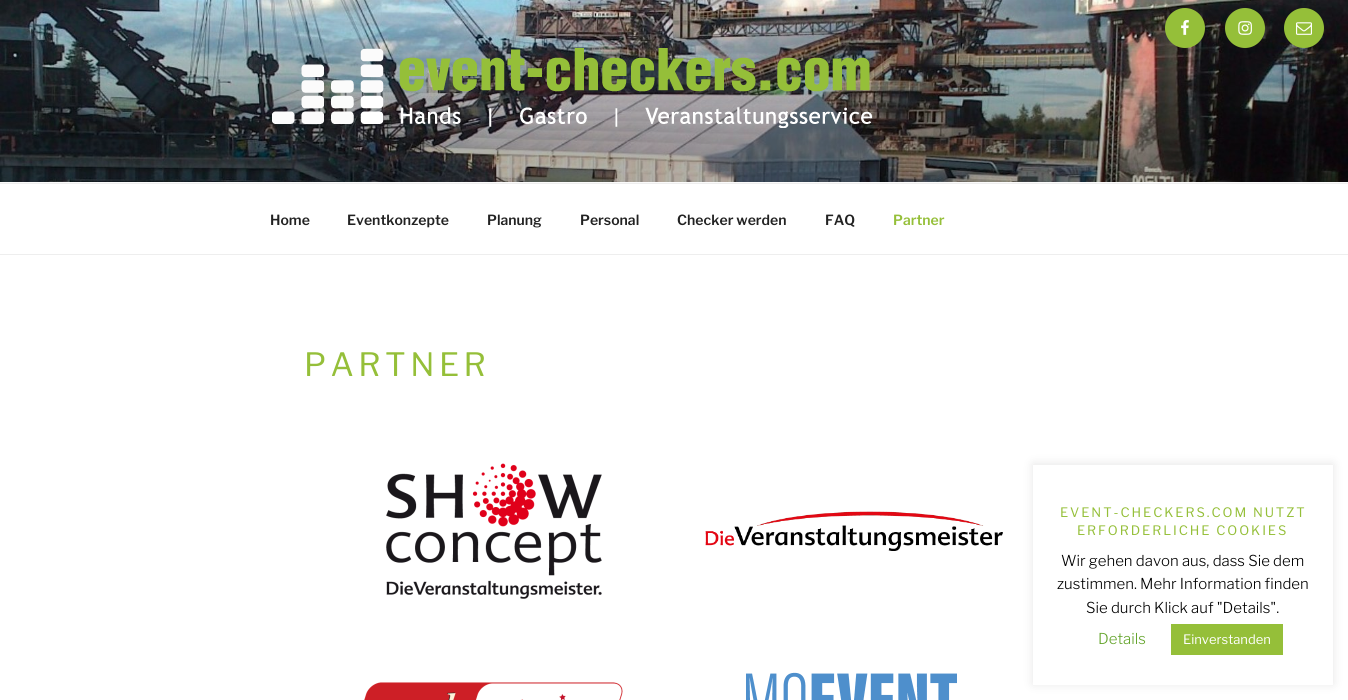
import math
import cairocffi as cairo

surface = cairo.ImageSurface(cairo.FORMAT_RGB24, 1348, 700)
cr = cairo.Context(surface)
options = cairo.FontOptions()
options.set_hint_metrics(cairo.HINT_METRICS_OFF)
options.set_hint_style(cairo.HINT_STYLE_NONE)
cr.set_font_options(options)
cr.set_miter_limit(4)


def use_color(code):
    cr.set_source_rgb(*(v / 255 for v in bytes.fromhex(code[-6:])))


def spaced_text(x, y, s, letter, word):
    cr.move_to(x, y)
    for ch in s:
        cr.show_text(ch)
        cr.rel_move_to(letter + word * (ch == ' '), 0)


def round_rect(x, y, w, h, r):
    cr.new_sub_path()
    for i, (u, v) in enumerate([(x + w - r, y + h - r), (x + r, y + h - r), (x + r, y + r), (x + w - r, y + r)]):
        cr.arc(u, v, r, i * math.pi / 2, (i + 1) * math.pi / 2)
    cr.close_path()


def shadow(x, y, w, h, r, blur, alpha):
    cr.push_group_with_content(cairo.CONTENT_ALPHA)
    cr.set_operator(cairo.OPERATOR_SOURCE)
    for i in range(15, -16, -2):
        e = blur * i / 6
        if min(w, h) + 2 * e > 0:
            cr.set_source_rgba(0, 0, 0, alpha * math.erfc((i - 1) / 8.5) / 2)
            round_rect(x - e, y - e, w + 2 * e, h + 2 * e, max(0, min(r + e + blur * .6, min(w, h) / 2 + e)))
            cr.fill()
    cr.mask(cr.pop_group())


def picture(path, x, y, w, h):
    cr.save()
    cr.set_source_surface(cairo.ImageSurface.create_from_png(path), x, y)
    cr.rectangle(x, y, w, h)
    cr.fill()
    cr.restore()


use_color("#ffffff")
cr.paint()
use_color("#fafafa")
cr.rectangle(0, 182, 1348, 1)
cr.fill()
picture("img1.png", 0, 0, 1348, 182)
picture("img2.png", 272, 48, 600, 80)
use_color("#95bf39")
cr.arc(1185, 28, 20, 0, 2 * math.pi)
cr.fill()
picture("img3.png", 1181, 20, 8, 15)
cr.arc(1245, 28, 20, 0, 2 * math.pi)
cr.fill()
picture("img4.png", 1238, 21, 14, 14)
cr.arc(1304, 28, 20, 0, 2 * math.pi)
cr.fill()
picture("img5.png", 1296, 22, 16, 13)
use_color("#eeeeee")
cr.rectangle(0, 183, 1348, 1)
cr.fill()
cr.rectangle(0, 254, 1348, 1)
cr.fill()
cr.select_font_face("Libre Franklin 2 Thin")
cr.set_font_size(14)
use_color("#222222")
cr.move_to(270, 225)
cr.show_text("Home")
cr.move_to(347, 225)
cr.show_text("Eventkonzepte")
cr.move_to(487, 225)
cr.show_text("Planung")
cr.move_to(580, 225)
cr.show_text("Personal")
cr.move_to(677, 225)
cr.show_text("Checker werden")
cr.move_to(825, 225)
cr.show_text("FAQ")
use_color("#95bf39")
cr.move_to(893, 225)
cr.show_text("Partner")
cr.select_font_face("Libre Franklin Thin")
cr.set_font_size(32)
spaced_text(304, 376, "PARTNER", 4.5, 0)
picture("img6.png", 386, 463, 216, 136)
picture("img7.png", 705, 511, 298, 40)
picture("img8.png", 364, 682, 259, 18)
picture("img9.png", 746, 672, 211, 28)
cr.save()
cr.set_fill_rule(cairo.FILL_RULE_EVEN_ODD)
cr.new_path()
cr.move_to(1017, 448)
cr.line_to(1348, 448)
cr.line_to(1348, 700)
cr.line_to(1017, 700)
cr.close_path()
cr.move_to(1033, 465)
cr.line_to(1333, 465)
cr.line_to(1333, 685)
cr.line_to(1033, 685)
cr.close_path()
cr.clip()
use_color("#acabab")
shadow(1033, 464, 300, 220, 0, 5, 0.3)
cr.restore()
cr.set_font_size(13)
spaced_text(1060, 517, "EVENT-CHECKERS.COM NUTZT", 1.95, 0)
spaced_text(1077, 535, "ERFORDERLICHE COOKIES", 1.95, 0)
cr.select_font_face("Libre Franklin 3 Thin")
cr.set_font_size(15)
use_color("#000000")
cr.move_to(1061, 566)
cr.show_text("Wir gehen davon aus, dass Sie dem")
cr.move_to(1057, 589)
cr.show_text("zustimmen. Mehr Information finden")
cr.move_to(1086, 613)
cr.show_text("Sie durch Klick auf \"Details\".")
use_color("#62a329")
cr.move_to(1098, 644)
cr.show_text("Details")
use_color("#95bf39")
cr.rectangle(1171, 624, 112, 31)
cr.fill()
cr.select_font_face("Libre Franklin Thin")
cr.set_font_size(13)
use_color("#ffffff")
cr.move_to(1183, 644)
cr.show_text("Einverstanden")
surface.write_to_png("result.png")
